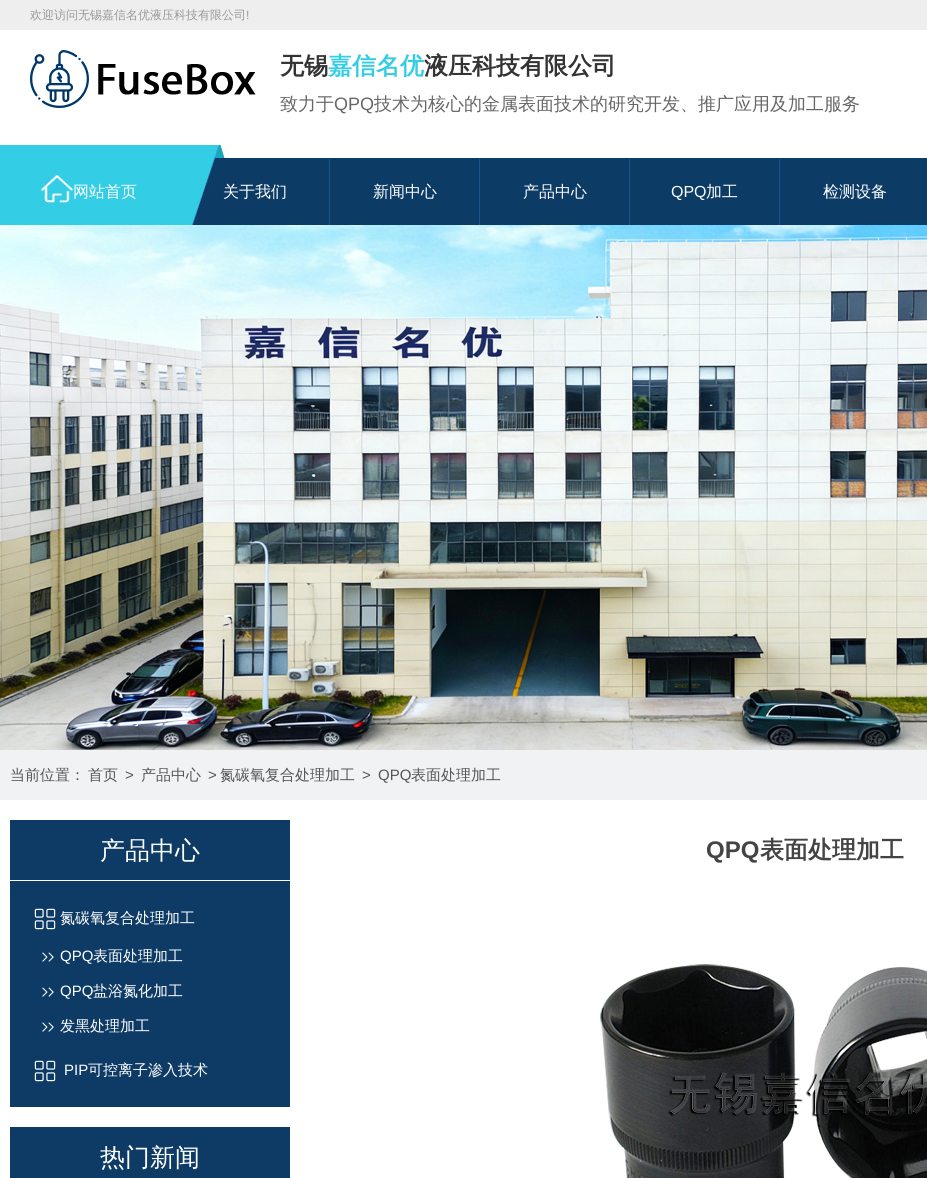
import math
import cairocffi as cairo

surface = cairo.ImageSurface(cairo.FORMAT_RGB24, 927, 1178)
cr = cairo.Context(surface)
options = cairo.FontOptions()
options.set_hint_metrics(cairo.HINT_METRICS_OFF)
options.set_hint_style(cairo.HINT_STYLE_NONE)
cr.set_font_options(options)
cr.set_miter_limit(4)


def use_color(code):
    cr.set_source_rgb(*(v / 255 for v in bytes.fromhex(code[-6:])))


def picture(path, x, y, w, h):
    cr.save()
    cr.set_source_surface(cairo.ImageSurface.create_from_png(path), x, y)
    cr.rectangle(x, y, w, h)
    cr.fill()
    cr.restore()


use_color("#ffffff")
cr.paint()
use_color("#eeeeee")
cr.rectangle(0, 0, 927, 30)
cr.fill()
cr.select_font_face("WenQuanYi Zen Hei Medium")
cr.set_font_size(12)
use_color("#999999")
cr.move_to(30, 19)
cr.show_text("欢迎访问无锡嘉信名优液压科技有限公司")
cr.select_font_face("Liberation Sans")
cr.move_to(246, 19)
cr.show_text("!")
picture("img1.png", 30, 50, 226, 58)
cr.select_font_face("WenQuanYi Zen Hei", cairo.FONT_SLANT_NORMAL, cairo.FONT_WEIGHT_BOLD)
cr.set_font_size(24)
use_color("#333333")
cr.move_to(280, 74)
cr.show_text("无锡")
use_color("#33cde5")
cr.move_to(328, 74)
cr.show_text("嘉信名优")
use_color("#333333")
cr.move_to(424, 74)
cr.show_text("液压科技有限公司")
cr.select_font_face("WenQuanYi Zen Hei Medium")
cr.set_font_size(18)
use_color("#666666")
cr.move_to(280, 110)
cr.show_text("致力于")
cr.select_font_face("Liberation Sans")
cr.move_to(334, 110)
cr.show_text("QPQ")
cr.select_font_face("WenQuanYi Zen Hei Medium")
cr.move_to(374, 110)
cr.show_text("技术为核心的金属表面技术的研究开发、推广应用及加工服务")
picture("img2.png", 0, 145, 927, 80)
cr.set_font_size(16)
use_color("#ffffff")
cr.move_to(73, 197)
cr.show_text("网站首页")
use_color("#1c558e")
cr.rectangle(329, 159, 1, 66)
cr.fill()
use_color("#ffffff")
cr.move_to(223, 197)
cr.show_text("关于我们")
use_color("#1c558e")
cr.rectangle(479, 159, 1, 66)
cr.fill()
use_color("#ffffff")
cr.move_to(373, 197)
cr.show_text("新闻中心")
use_color("#1c558e")
cr.rectangle(629, 159, 1, 66)
cr.fill()
use_color("#ffffff")
cr.move_to(523, 197)
cr.show_text("产品中心")
use_color("#1c558e")
cr.rectangle(779, 159, 1, 66)
cr.fill()
cr.select_font_face("Liberation Sans")
use_color("#ffffff")
cr.move_to(671, 197)
cr.show_text("QPQ")
cr.select_font_face("WenQuanYi Zen Hei Medium")
cr.move_to(706, 197)
cr.show_text("加工")
cr.move_to(823, 197)
cr.show_text("检测设备")
picture("img3.png", 0, 225, 927, 525)
use_color("#f1f2f4")
cr.rectangle(0, 750, 927, 50)
cr.fill()
cr.set_font_size(15)
use_color("#555555")
cr.move_to(10, 780)
cr.show_text("当前位置：")
cr.move_to(88, 780)
cr.show_text("首页")
cr.select_font_face("Liberation Sans")
cr.move_to(125, 780)
cr.show_text(">")
cr.select_font_face("WenQuanYi Zen Hei Medium")
cr.move_to(141, 780)
cr.show_text("产品中心")
cr.select_font_face("Liberation Sans")
cr.move_to(208, 780)
cr.show_text(">")
cr.select_font_face("WenQuanYi Zen Hei Medium")
cr.move_to(220, 780)
cr.show_text("氮碳氧复合处理加工")
cr.select_font_face("Liberation Sans")
cr.move_to(362, 780)
cr.show_text(">")
cr.move_to(378, 780)
cr.show_text("QPQ")
cr.select_font_face("WenQuanYi Zen Hei Medium")
cr.move_to(411, 780)
cr.show_text("表面处理加工")
use_color("#0d3b65")
cr.rectangle(10, 820, 280, 287)
cr.fill()
use_color("#ffffff")
cr.rectangle(10, 880, 280, 1)
cr.fill()
cr.set_font_size(25)
cr.move_to(100, 859)
cr.show_text("产品中心")
picture("img4.png", 34, 908, 22, 22)
cr.set_font_size(15)
cr.move_to(60, 923)
cr.show_text("氮碳氧复合处理加工")
picture("img5.png", 42, 952, 12, 10)
cr.select_font_face("Liberation Sans")
cr.move_to(60, 961)
cr.show_text("QPQ")
cr.select_font_face("WenQuanYi Zen Hei Medium")
cr.move_to(93, 961)
cr.show_text("表面处理加工")
picture("img5.png", 42, 987, 12, 10)
cr.select_font_face("Liberation Sans")
cr.move_to(60, 996)
cr.show_text("QPQ")
cr.select_font_face("WenQuanYi Zen Hei Medium")
cr.move_to(93, 996)
cr.show_text("盐浴氮化加工")
picture("img5.png", 42, 1022, 12, 10)
cr.move_to(60, 1031)
cr.show_text("发黑处理加工")
picture("img4.png", 34, 1060, 22, 22)
cr.select_font_face("Liberation Sans")
cr.move_to(64, 1075)
cr.show_text("PIP")
cr.select_font_face("WenQuanYi Zen Hei Medium")
cr.move_to(88, 1075)
cr.show_text("可控离子渗入技术")
use_color("#0d3b65")
cr.rectangle(10, 1127, 280, 51)
cr.fill()
cr.set_font_size(25)
use_color("#ffffff")
cr.move_to(100, 1166)
cr.show_text("热门新闻")
cr.select_font_face("Liberation Sans", cairo.FONT_SLANT_NORMAL, cairo.FONT_WEIGHT_BOLD)
cr.set_font_size(24)
use_color("#444444")
cr.move_to(706, 858)
cr.show_text("QPQ")
cr.select_font_face("WenQuanYi Zen Hei", cairo.FONT_SLANT_NORMAL, cairo.FONT_WEIGHT_BOLD)
cr.move_to(760, 858)
cr.show_text("表面处理加工")
picture("img6.png", 600, 964, 327, 214)
surface.write_to_png("result.png")
